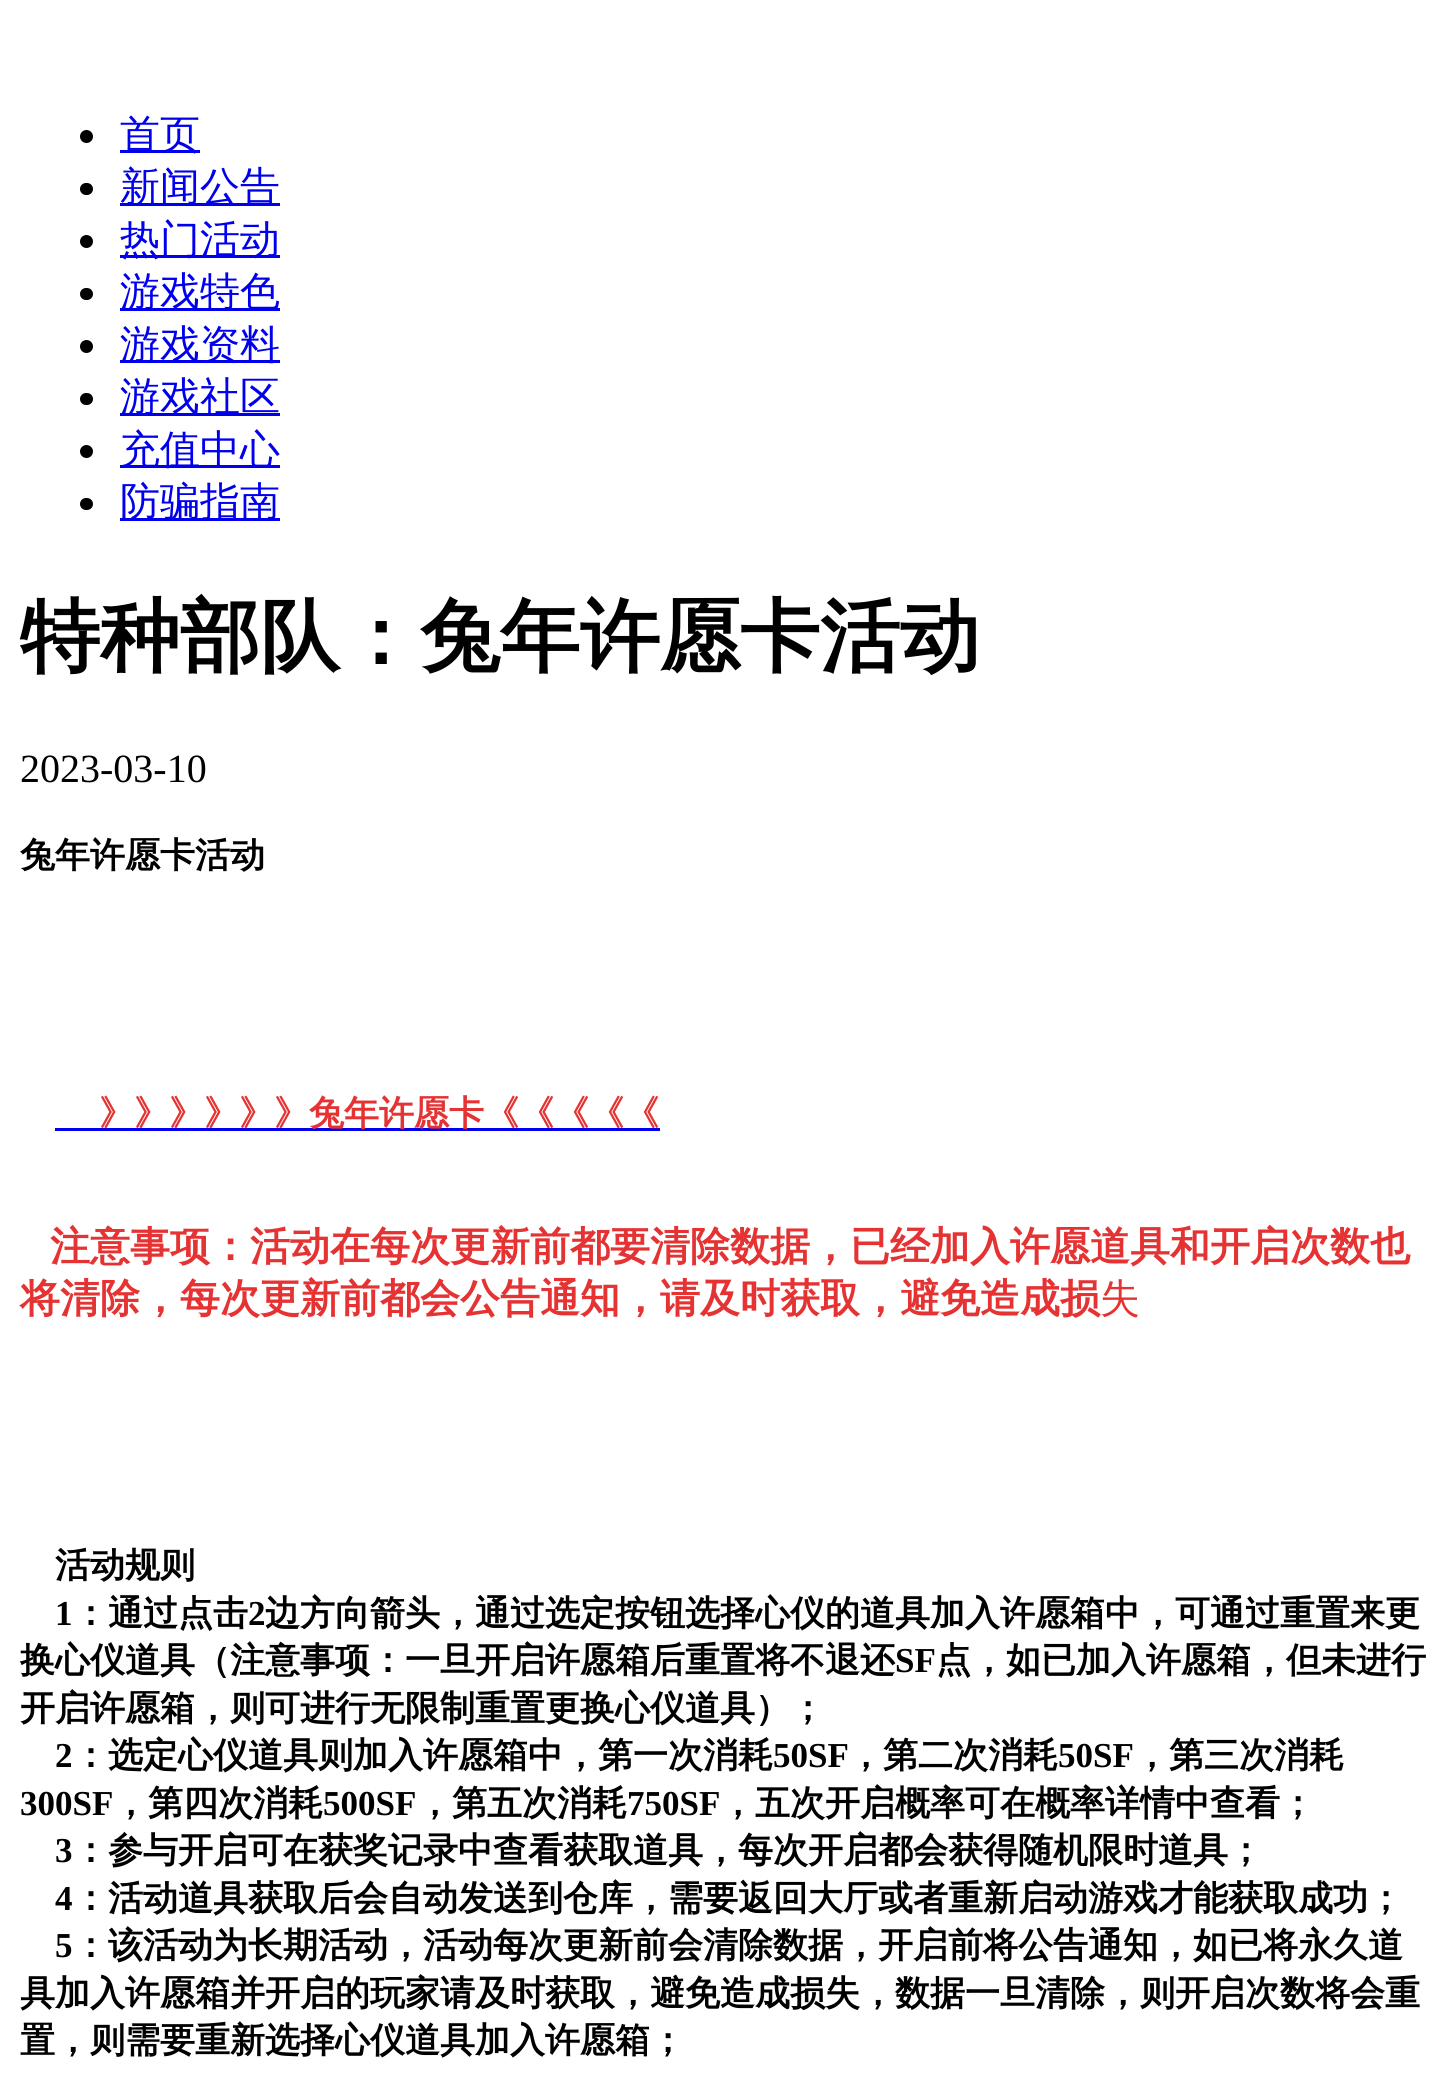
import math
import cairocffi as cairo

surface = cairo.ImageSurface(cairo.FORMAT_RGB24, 1446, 2084)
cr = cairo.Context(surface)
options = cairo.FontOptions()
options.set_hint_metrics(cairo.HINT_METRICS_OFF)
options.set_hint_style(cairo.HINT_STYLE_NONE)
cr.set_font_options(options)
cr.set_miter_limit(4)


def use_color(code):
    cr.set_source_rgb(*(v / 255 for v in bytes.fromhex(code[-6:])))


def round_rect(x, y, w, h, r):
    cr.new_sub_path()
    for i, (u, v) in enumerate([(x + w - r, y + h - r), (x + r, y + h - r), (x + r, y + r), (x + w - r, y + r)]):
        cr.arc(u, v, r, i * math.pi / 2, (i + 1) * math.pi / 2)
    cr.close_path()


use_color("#ffffff")
cr.paint()
use_color("#000000")
cr.arc(86.5, 136.5, 6.5, 0, 2 * math.pi)
cr.fill()
use_color("#0000ee")
cr.rectangle(120, 150, 80, 3)
cr.fill()
cr.select_font_face("WenQuanYi Zen Hei Medium")
cr.set_font_size(40)
cr.move_to(120, 148)
cr.show_text("首页")
use_color("#000000")
round_rect(80, 183, 13, 12, 6)
cr.fill()
use_color("#0000ee")
cr.rectangle(120, 203, 160, 3)
cr.fill()
cr.move_to(120, 200)
cr.show_text("新闻公告")
use_color("#000000")
cr.new_path()
cr.arc(86.5, 241.5, 6.5, 0, 2 * math.pi)
cr.fill()
use_color("#0000ee")
cr.rectangle(120, 255, 160, 3)
cr.fill()
cr.move_to(120, 253)
cr.show_text("热门活动")
use_color("#000000")
round_rect(80, 288, 13, 12, 6)
cr.fill()
use_color("#0000ee")
cr.rectangle(120, 308, 160, 3)
cr.fill()
cr.move_to(120, 305)
cr.show_text("游戏特色")
use_color("#000000")
cr.new_path()
cr.arc(86.5, 346.5, 6.5, 0, 2 * math.pi)
cr.fill()
use_color("#0000ee")
cr.rectangle(120, 360, 160, 3)
cr.fill()
cr.move_to(120, 358)
cr.show_text("游戏资料")
use_color("#000000")
round_rect(80, 393, 13, 12, 6)
cr.fill()
use_color("#0000ee")
cr.rectangle(120, 413, 160, 3)
cr.fill()
cr.move_to(120, 410)
cr.show_text("游戏社区")
use_color("#000000")
cr.new_path()
cr.arc(86.5, 451.5, 6.5, 0, 2 * math.pi)
cr.fill()
use_color("#0000ee")
cr.rectangle(120, 465, 160, 3)
cr.fill()
cr.move_to(120, 463)
cr.show_text("充值中心")
use_color("#000000")
round_rect(80, 498, 13, 12, 6)
cr.fill()
use_color("#0000ee")
cr.rectangle(120, 518, 160, 3)
cr.fill()
cr.move_to(120, 515)
cr.show_text("防骗指南")
cr.select_font_face("WenQuanYi Zen Hei", cairo.FONT_SLANT_NORMAL, cairo.FONT_WEIGHT_BOLD)
cr.set_font_size(80)
use_color("#000000")
cr.move_to(20, 664)
cr.show_text("特种部队：兔年许愿卡活动")
cr.select_font_face("Liberation Serif")
cr.set_font_size(40)
cr.move_to(20, 782)
cr.show_text("2023-03-10")
cr.select_font_face("WenQuanYi Zen Hei", cairo.FONT_SLANT_NORMAL, cairo.FONT_WEIGHT_BOLD)
cr.set_font_size(35)
cr.move_to(20, 867)
cr.show_text("兔年许愿卡活动")
use_color("#0000ee")
cr.rectangle(55, 1128, 605, 3)
cr.fill()
use_color("#e53333")
cr.move_to(99, 1125)
cr.show_text("》》》》》》兔年许愿卡《《《《《")
cr.set_font_size(40)
cr.move_to(50, 1260)
cr.show_text("注意事项：活动在每次更新前都要清除数据，已经加入许愿道具和开启次数也")
cr.move_to(20, 1312)
cr.show_text("将清除，每次更新前都会公告通知，请及时获取，避免造成损")
cr.select_font_face("WenQuanYi Zen Hei Medium")
cr.move_to(1100, 1312)
cr.show_text("失")
cr.select_font_face("WenQuanYi Zen Hei", cairo.FONT_SLANT_NORMAL, cairo.FONT_WEIGHT_BOLD)
cr.set_font_size(35)
use_color("#000000")
cr.move_to(55, 1577)
cr.show_text("活动规则")
cr.select_font_face("Liberation Serif", cairo.FONT_SLANT_NORMAL, cairo.FONT_WEIGHT_BOLD)
cr.move_to(55, 1625)
cr.show_text("1")
cr.select_font_face("WenQuanYi Zen Hei", cairo.FONT_SLANT_NORMAL, cairo.FONT_WEIGHT_BOLD)
cr.move_to(73, 1625)
cr.show_text("：通过点击")
cr.select_font_face("Liberation Serif", cairo.FONT_SLANT_NORMAL, cairo.FONT_WEIGHT_BOLD)
cr.move_to(248, 1625)
cr.show_text("2")
cr.select_font_face("WenQuanYi Zen Hei", cairo.FONT_SLANT_NORMAL, cairo.FONT_WEIGHT_BOLD)
cr.move_to(265, 1625)
cr.show_text("边方向箭头，通过选定按钮选择心仪的道具加入许愿箱中，可通过重置来更")
cr.move_to(20, 1672)
cr.show_text("换心仪道具（注意事项：一旦开启许愿箱后重置将不退还")
cr.select_font_face("Liberation Serif", cairo.FONT_SLANT_NORMAL, cairo.FONT_WEIGHT_BOLD)
cr.move_to(895, 1672)
cr.show_text("SF")
cr.select_font_face("WenQuanYi Zen Hei", cairo.FONT_SLANT_NORMAL, cairo.FONT_WEIGHT_BOLD)
cr.move_to(936, 1672)
cr.show_text("点，如已加入许愿箱，但未进行")
cr.move_to(20, 1720)
cr.show_text("开启许愿箱，则可进行无限制重置更换心仪道具）；")
cr.select_font_face("Liberation Serif", cairo.FONT_SLANT_NORMAL, cairo.FONT_WEIGHT_BOLD)
cr.move_to(55, 1767)
cr.show_text("2")
cr.select_font_face("WenQuanYi Zen Hei", cairo.FONT_SLANT_NORMAL, cairo.FONT_WEIGHT_BOLD)
cr.move_to(73, 1767)
cr.show_text("：选定心仪道具则加入许愿箱中，第一次消耗")
cr.select_font_face("Liberation Serif", cairo.FONT_SLANT_NORMAL, cairo.FONT_WEIGHT_BOLD)
cr.move_to(773, 1767)
cr.show_text("50SF")
cr.select_font_face("WenQuanYi Zen Hei", cairo.FONT_SLANT_NORMAL, cairo.FONT_WEIGHT_BOLD)
cr.move_to(848, 1767)
cr.show_text("，第二次消耗")
cr.select_font_face("Liberation Serif", cairo.FONT_SLANT_NORMAL, cairo.FONT_WEIGHT_BOLD)
cr.move_to(1058, 1767)
cr.show_text("50SF")
cr.select_font_face("WenQuanYi Zen Hei", cairo.FONT_SLANT_NORMAL, cairo.FONT_WEIGHT_BOLD)
cr.move_to(1134, 1767)
cr.show_text("，第三次消耗")
cr.select_font_face("Liberation Serif", cairo.FONT_SLANT_NORMAL, cairo.FONT_WEIGHT_BOLD)
cr.move_to(20, 1815)
cr.show_text("300SF")
cr.select_font_face("WenQuanYi Zen Hei", cairo.FONT_SLANT_NORMAL, cairo.FONT_WEIGHT_BOLD)
cr.move_to(113, 1815)
cr.show_text("，第四次消耗")
cr.select_font_face("Liberation Serif", cairo.FONT_SLANT_NORMAL, cairo.FONT_WEIGHT_BOLD)
cr.move_to(323, 1815)
cr.show_text("500SF")
cr.select_font_face("WenQuanYi Zen Hei", cairo.FONT_SLANT_NORMAL, cairo.FONT_WEIGHT_BOLD)
cr.move_to(417, 1815)
cr.show_text("，第五次消耗")
cr.select_font_face("Liberation Serif", cairo.FONT_SLANT_NORMAL, cairo.FONT_WEIGHT_BOLD)
cr.move_to(627, 1815)
cr.show_text("750SF")
cr.select_font_face("WenQuanYi Zen Hei", cairo.FONT_SLANT_NORMAL, cairo.FONT_WEIGHT_BOLD)
cr.move_to(720, 1815)
cr.show_text("，五次开启概率可在概率详情中查看；")
cr.select_font_face("Liberation Serif", cairo.FONT_SLANT_NORMAL, cairo.FONT_WEIGHT_BOLD)
cr.move_to(55, 1862)
cr.show_text("3")
cr.select_font_face("WenQuanYi Zen Hei", cairo.FONT_SLANT_NORMAL, cairo.FONT_WEIGHT_BOLD)
cr.move_to(73, 1862)
cr.show_text("：参与开启可在获奖记录中查看获取道具，每次开启都会获得随机限时道具；")
cr.select_font_face("Liberation Serif", cairo.FONT_SLANT_NORMAL, cairo.FONT_WEIGHT_BOLD)
cr.move_to(55, 1910)
cr.show_text("4")
cr.select_font_face("WenQuanYi Zen Hei", cairo.FONT_SLANT_NORMAL, cairo.FONT_WEIGHT_BOLD)
cr.move_to(73, 1910)
cr.show_text("：活动道具获取后会自动发送到仓库，需要返回大厅或者重新启动游戏才能获取成功；")
cr.select_font_face("Liberation Serif", cairo.FONT_SLANT_NORMAL, cairo.FONT_WEIGHT_BOLD)
cr.move_to(55, 1957)
cr.show_text("5")
cr.select_font_face("WenQuanYi Zen Hei", cairo.FONT_SLANT_NORMAL, cairo.FONT_WEIGHT_BOLD)
cr.move_to(73, 1957)
cr.show_text("：该活动为长期活动，活动每次更新前会清除数据，开启前将公告通知，如已将永久道")
cr.move_to(20, 2005)
cr.show_text("具加入许愿箱并开启的玩家请及时获取，避免造成损失，数据一旦清除，则开启次数将会重")
cr.move_to(20, 2052)
cr.show_text("置，则需要重新选择心仪道具加入许愿箱；")
surface.write_to_png("result.png")
